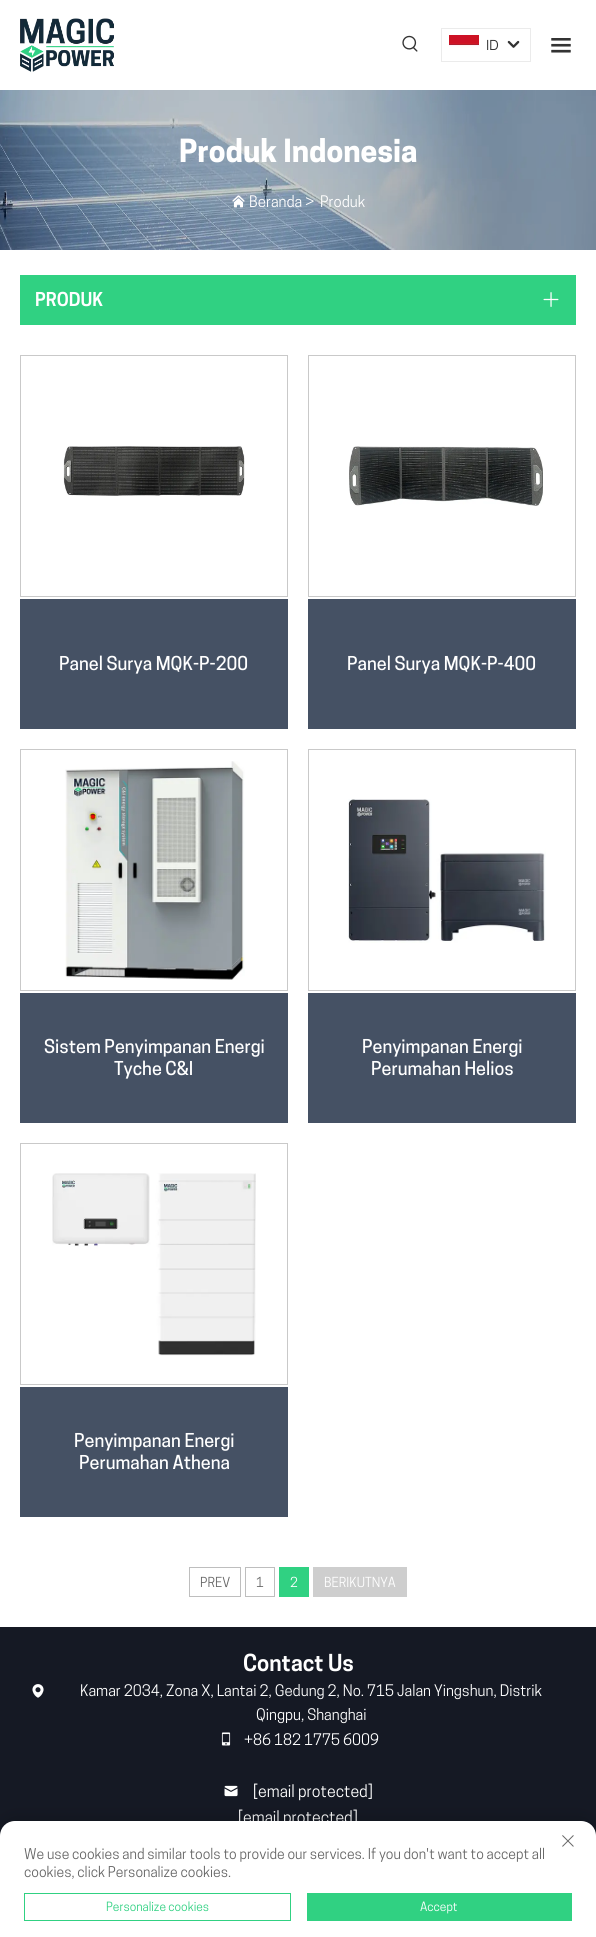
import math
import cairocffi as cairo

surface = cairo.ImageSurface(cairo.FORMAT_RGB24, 596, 1937)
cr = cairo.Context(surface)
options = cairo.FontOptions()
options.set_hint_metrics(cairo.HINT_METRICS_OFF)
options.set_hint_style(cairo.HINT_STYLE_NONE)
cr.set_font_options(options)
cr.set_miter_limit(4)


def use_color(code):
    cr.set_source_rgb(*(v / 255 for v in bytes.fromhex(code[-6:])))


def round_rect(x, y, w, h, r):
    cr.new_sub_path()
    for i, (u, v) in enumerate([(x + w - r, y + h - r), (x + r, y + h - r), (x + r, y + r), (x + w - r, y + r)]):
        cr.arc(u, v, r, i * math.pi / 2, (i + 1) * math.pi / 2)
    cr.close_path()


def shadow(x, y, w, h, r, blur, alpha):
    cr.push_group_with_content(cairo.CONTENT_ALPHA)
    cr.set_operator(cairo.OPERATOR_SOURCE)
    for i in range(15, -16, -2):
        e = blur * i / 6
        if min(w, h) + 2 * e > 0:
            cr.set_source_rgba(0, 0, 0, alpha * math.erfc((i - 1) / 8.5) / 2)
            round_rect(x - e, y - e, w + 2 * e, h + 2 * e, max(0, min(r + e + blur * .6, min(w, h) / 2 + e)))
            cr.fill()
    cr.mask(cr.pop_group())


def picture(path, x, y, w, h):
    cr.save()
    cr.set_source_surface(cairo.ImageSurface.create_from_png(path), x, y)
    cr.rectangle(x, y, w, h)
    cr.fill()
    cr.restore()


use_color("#ffffff")
cr.paint()
picture("img1.png", 20, 18, 94, 54)
picture("img2.png", 402, 35, 16, 17)
cr.rectangle(441.5, 28.5, 89, 33)
use_color("#ebebeb")
cr.set_line_width(1)
cr.stroke()
picture("img3.png", 449, 35, 30, 13)
cr.select_font_face("Manrope")
cr.set_font_size(14)
use_color("#333333")
cr.move_to(486, 50)
cr.show_text("ID")
picture("img4.png", 507, 40, 13, 8)
picture("img5.png", 551, 38, 20, 15)
picture("img6.png", 0, 90, 596, 160)
cr.select_font_face("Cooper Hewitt", cairo.FONT_SLANT_NORMAL, cairo.FONT_WEIGHT_BOLD)
cr.set_font_size(30)
use_color("#ffffff")
cr.move_to(179, 162)
cr.show_text("Produk Indonesia")
picture("img7.png", 232, 195, 13, 13)
cr.select_font_face("Cooper Hewitt")
cr.set_font_size(15)
cr.move_to(249, 207)
cr.show_text("Beranda >")
cr.move_to(320, 207)
cr.show_text("Produk")
use_color("#30d182")
cr.rectangle(20, 275, 556, 50)
cr.fill()
cr.select_font_face("Cooper Hewitt SemiBold")
cr.set_font_size(18)
use_color("#ffffff")
cr.move_to(35, 306)
cr.show_text("PRODUK")
picture("img8.png", 543, 292, 16, 15)
cr.rectangle(20.5, 355.5, 267, 241)
use_color("#c9c9c9")
cr.stroke()
picture("img9.png", 63, 446, 182, 50)
use_color("#455164")
cr.rectangle(20, 599, 268, 130)
cr.fill()
cr.select_font_face("Cooper Hewitt Medium")
use_color("#ffffff")
cr.move_to(59, 670)
cr.show_text("Panel Surya MQK-P-200")
cr.rectangle(308.5, 355.5, 267, 241)
use_color("#c9c9c9")
cr.stroke()
picture("img10.png", 349, 446, 194, 60)
use_color("#455164")
cr.rectangle(308, 599, 268, 130)
cr.fill()
use_color("#ffffff")
cr.move_to(347, 670)
cr.show_text("Panel Surya MQK-P-400")
cr.rectangle(20.5, 749.5, 267, 241)
use_color("#c9c9c9")
cr.stroke()
picture("img11.png", 65, 761, 180, 219)
use_color("#455164")
cr.rectangle(20, 993, 268, 130)
cr.fill()
use_color("#ffffff")
cr.move_to(44, 1053)
cr.show_text("Sistem Penyimpanan Energi")
cr.move_to(114, 1075)
cr.show_text("Tyche C&I")
cr.rectangle(308.5, 749.5, 267, 241)
use_color("#c9c9c9")
cr.stroke()
picture("img12.png", 348, 799, 198, 144)
use_color("#455164")
cr.rectangle(308, 993, 268, 130)
cr.fill()
use_color("#ffffff")
cr.move_to(362, 1053)
cr.show_text("Penyimpanan Energi")
cr.move_to(371, 1075)
cr.show_text("Perumahan Helios")
cr.rectangle(20.5, 1143.5, 267, 241)
use_color("#c9c9c9")
cr.stroke()
picture("img13.png", 52, 1173, 204, 183)
use_color("#455164")
cr.rectangle(20, 1387, 268, 130)
cr.fill()
use_color("#ffffff")
cr.move_to(74, 1447)
cr.show_text("Penyimpanan Energi")
cr.move_to(79, 1469)
cr.show_text("Perumahan Athena")
cr.rectangle(189.5, 1567.5, 51, 29)
use_color("#bebebe")
cr.stroke()
cr.select_font_face("Cooper Hewitt")
cr.set_font_size(13)
use_color("#666666")
cr.move_to(200, 1587)
cr.show_text("PREV")
cr.rectangle(245.5, 1567.5, 29, 29)
use_color("#bebebe")
cr.stroke()
use_color("#666666")
cr.move_to(256, 1587)
cr.show_text("1")
use_color("#30d182")
cr.rectangle(279, 1567, 30, 30)
cr.fill()
use_color("#ffffff")
cr.move_to(290, 1587)
cr.show_text("2")
use_color("#cecece")
cr.rectangle(313, 1567, 94, 30)
cr.fill()
use_color("#ffffff")
cr.move_to(324, 1587)
cr.show_text("BERIKUTNYA")
use_color("#151924")
cr.rectangle(0, 1627, 596, 209)
cr.fill()
cr.select_font_face("Cooper Hewitt SemiBold")
cr.set_font_size(22)
use_color("#ffffff")
cr.move_to(243, 1671)
cr.show_text("Contact Us")
picture("img14.png", 32, 1684, 12, 14)
cr.select_font_face("Cooper Hewitt")
cr.set_font_size(15)
cr.move_to(80, 1696)
cr.show_text("Kamar 2034, Zona X, Lantai 2, Gedung 2, No. 715 Jalan Yingshun, Distrik")
cr.move_to(256, 1720)
cr.show_text("Qingpu, Shanghai")
picture("img15.png", 221, 1732, 10, 14)
cr.move_to(244, 1745)
cr.show_text("+86 182 1775 6009")
picture("img16.png", 224, 1785, 14, 12)
cr.set_font_size(16)
cr.move_to(253, 1797)
cr.show_text("[email protected]")
cr.move_to(238, 1823)
cr.show_text("[email protected]")
use_color("#000000")
shadow(0, 1817, 596, 116, 15, 8, 0.16)
use_color("#ffffff")
cr.new_path()
cr.move_to(15, 1821)
cr.line_to(581, 1821)
cr.curve_to(589.5, 1821, 596, 1827.5, 596, 1836)
cr.line_to(596, 1937)
cr.line_to(0, 1937)
cr.line_to(0, 1836)
cr.curve_to(0, 1827.5, 6.5, 1821, 15, 1821)
cr.close_path()
cr.fill()
picture("img17.png", 562, 1835, 12, 12)
cr.set_font_size(14)
use_color("#666666")
cr.move_to(24, 1859)
cr.show_text("We use cookies and similar tools to provide our services. If you don't want to accept all")
cr.move_to(24, 1877)
cr.show_text("cookies, click Personalize cookies.")
cr.rectangle(24.5, 1893.5, 266, 27)
use_color("#30d182")
cr.stroke()
cr.set_font_size(12)
cr.move_to(106, 1911)
cr.show_text("Personalize cookies")
cr.rectangle(307, 1893, 265, 28)
cr.fill()
use_color("#ffffff")
cr.move_to(420, 1911)
cr.show_text("Accept")
surface.write_to_png("result.png")
